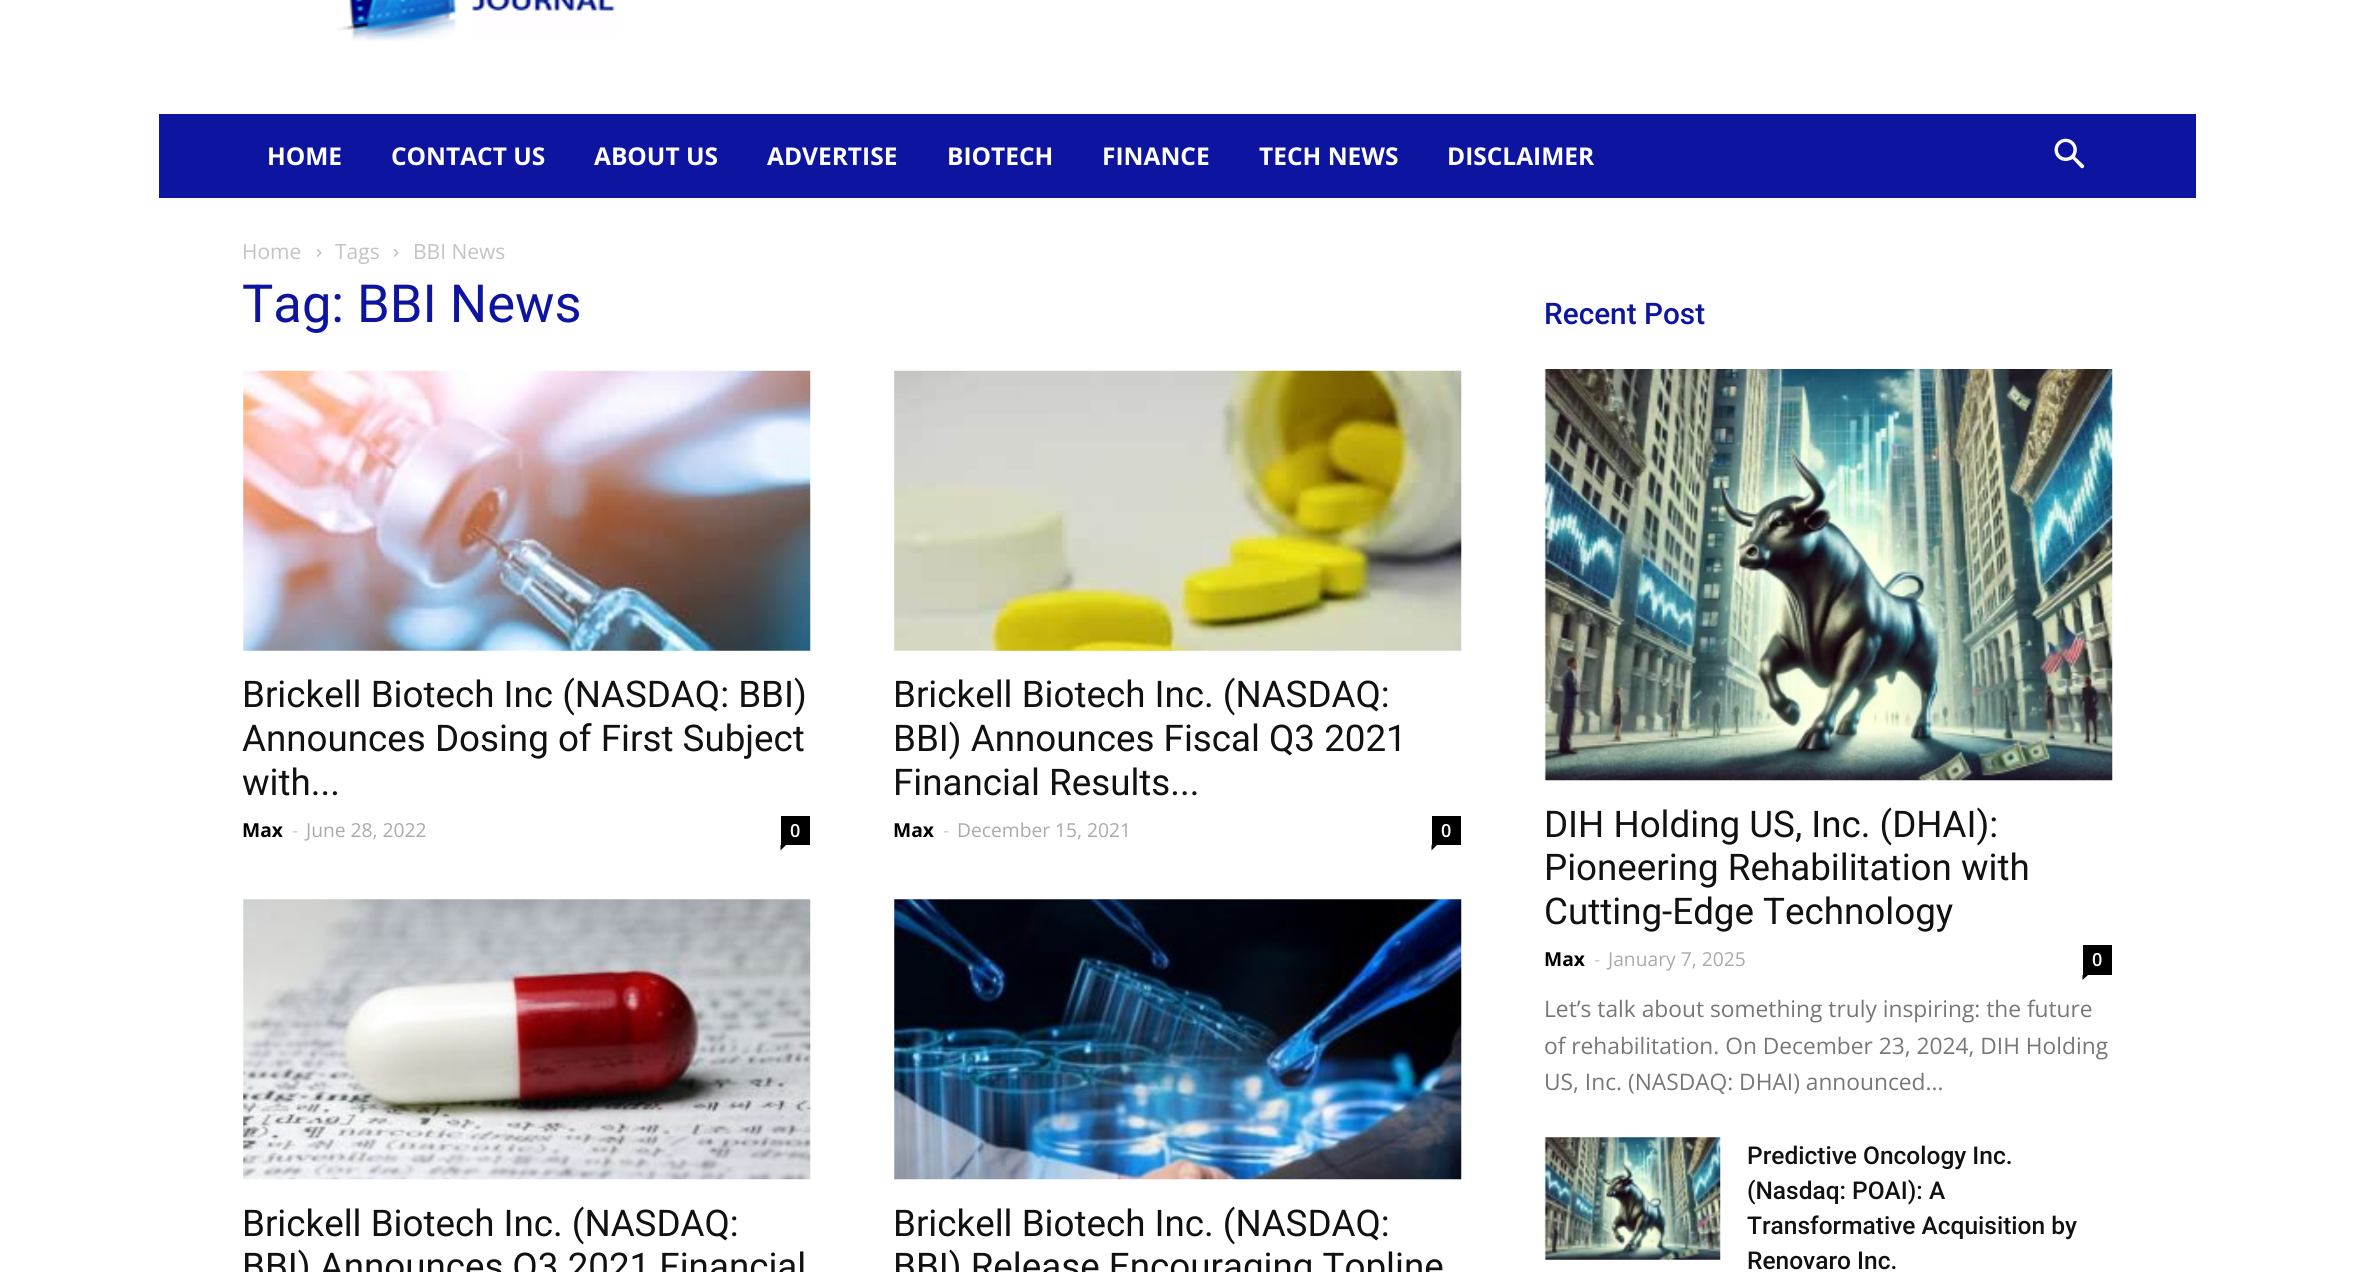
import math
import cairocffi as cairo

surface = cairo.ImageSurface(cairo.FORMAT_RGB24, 2353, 1272)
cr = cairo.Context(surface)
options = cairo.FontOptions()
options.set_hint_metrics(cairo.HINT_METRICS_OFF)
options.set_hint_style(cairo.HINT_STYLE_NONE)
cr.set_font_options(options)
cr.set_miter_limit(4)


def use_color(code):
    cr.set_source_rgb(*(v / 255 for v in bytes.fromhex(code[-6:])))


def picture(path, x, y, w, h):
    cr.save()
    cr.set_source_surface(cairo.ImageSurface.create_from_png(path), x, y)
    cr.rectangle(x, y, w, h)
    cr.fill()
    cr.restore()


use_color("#ffffff")
cr.paint()
picture("img1.png", 337, 0, 278, 42)
use_color("#0d14a0")
cr.rectangle(159, 114, 2037, 84)
cr.fill()
cr.select_font_face("Open Sans", cairo.FONT_SLANT_NORMAL, cairo.FONT_WEIGHT_BOLD)
cr.set_font_size(24.5)
use_color("#ffffff")
cr.move_to(267, 165)
cr.show_text("HOME")
cr.move_to(391, 165)
cr.show_text("CONTACT US")
cr.move_to(594, 165)
cr.show_text("ABOUT US")
cr.move_to(767, 165)
cr.show_text("ADVERTISE")
cr.move_to(947, 165)
cr.show_text("BIOTECH")
cr.move_to(1102, 165)
cr.show_text("FINANCE")
cr.move_to(1259, 165)
cr.show_text("TECH NEWS")
cr.move_to(1447, 165)
cr.show_text("DISCLAIMER")
picture("img2.png", 2054, 138, 31, 31)
cr.select_font_face("Open Sans")
cr.set_font_size(21)
use_color("#c3c3c3")
cr.move_to(242, 259)
cr.show_text("Home")
picture("img3.png", 316, 248, 6, 9)
cr.move_to(335, 259)
cr.show_text("Tags")
picture("img3.png", 393, 248, 6, 9)
cr.move_to(413, 259)
cr.show_text("BBI News")
cr.select_font_face("Roboto")
cr.set_font_size(52.5)
use_color("#0d14a0")
cr.move_to(242, 322)
cr.show_text("Tag: BBI News")
picture("img4.png", 243, 370, 568, 281)
cr.set_font_size(36.75)
use_color("#111111")
cr.move_to(242, 707)
cr.show_text("Brickell Biotech Inc (NASDAQ: BBI)")
cr.move_to(242, 751)
cr.show_text("Announces Dosing of First Subject")
cr.move_to(242, 795)
cr.show_text("with...")
cr.select_font_face("Open Sans", cairo.FONT_SLANT_NORMAL, cairo.FONT_WEIGHT_BOLD)
cr.set_font_size(19.25)
use_color("#000000")
cr.move_to(242, 837)
cr.show_text("Max")
cr.select_font_face("Open Sans")
use_color("#cccccc")
cr.move_to(292, 837)
cr.show_text("-")
use_color("#aaaaaa")
cr.move_to(306, 837)
cr.show_text("June 28, 2022")
use_color("#000000")
cr.rectangle(781, 816, 29, 29)
cr.fill()
cr.select_font_face("Open Sans SemiBold")
cr.set_font_size(18)
use_color("#ffffff")
cr.move_to(790, 837)
cr.show_text("0")
use_color("#000000")
cr.new_path()
cr.move_to(780.5, 845)
cr.line_to(786, 845)
cr.line_to(780.5, 850.5)
cr.close_path()
cr.fill()
picture("img5.png", 894, 370, 568, 281)
cr.select_font_face("Roboto")
cr.set_font_size(36.75)
use_color("#111111")
cr.move_to(893, 707)
cr.show_text("Brickell Biotech Inc. (NASDAQ:")
cr.move_to(893, 751)
cr.show_text("BBI) Announces Fiscal Q3 2021")
cr.move_to(893, 795)
cr.show_text("Financial Results...")
cr.select_font_face("Open Sans", cairo.FONT_SLANT_NORMAL, cairo.FONT_WEIGHT_BOLD)
cr.set_font_size(19.25)
use_color("#000000")
cr.move_to(893, 837)
cr.show_text("Max")
cr.select_font_face("Open Sans")
use_color("#cccccc")
cr.move_to(943, 837)
cr.show_text("-")
use_color("#aaaaaa")
cr.move_to(957, 837)
cr.show_text("December 15, 2021")
use_color("#000000")
cr.rectangle(1432, 816, 29, 29)
cr.fill()
cr.select_font_face("Open Sans SemiBold")
cr.set_font_size(18)
use_color("#ffffff")
cr.move_to(1441, 837)
cr.show_text("0")
use_color("#000000")
cr.new_path()
cr.move_to(1431.5, 845)
cr.line_to(1437, 845)
cr.line_to(1431.5, 850.5)
cr.close_path()
cr.fill()
picture("img6.png", 243, 899, 568, 281)
cr.select_font_face("Roboto")
cr.set_font_size(36.75)
use_color("#111111")
cr.move_to(242, 1236)
cr.show_text("Brickell Biotech Inc. (NASDAQ:")
cr.move_to(242, 1279)
cr.show_text("BBI) Announces Q3 2021 Financial")
picture("img7.png", 894, 899, 568, 281)
cr.move_to(893, 1236)
cr.show_text("Brickell Biotech Inc. (NASDAQ:")
cr.move_to(893, 1279)
cr.show_text("BBI) Release Encouraging Topline")
cr.select_font_face("Roboto Medium")
cr.set_font_size(29.75)
use_color("#0d14a0")
cr.move_to(1544, 324)
cr.show_text("Recent Post")
picture("img8.png", 1544, 369, 569, 412)
cr.select_font_face("Roboto")
cr.set_font_size(36.75)
use_color("#111111")
cr.move_to(1544, 837)
cr.show_text("DIH Holding US, Inc. (DHAI):")
cr.move_to(1544, 880)
cr.show_text("Pioneering Rehabilitation with")
cr.move_to(1544, 924)
cr.show_text("Cutting-Edge Technology")
cr.select_font_face("Open Sans", cairo.FONT_SLANT_NORMAL, cairo.FONT_WEIGHT_BOLD)
cr.set_font_size(19.25)
use_color("#000000")
cr.move_to(1544, 966)
cr.show_text("Max")
cr.select_font_face("Open Sans")
use_color("#cccccc")
cr.move_to(1594, 966)
cr.show_text("-")
use_color("#aaaaaa")
cr.move_to(1608, 966)
cr.show_text("January 7, 2025")
use_color("#000000")
cr.rectangle(2083, 945, 29, 30)
cr.fill()
cr.select_font_face("Open Sans SemiBold")
cr.set_font_size(18)
use_color("#ffffff")
cr.move_to(2092, 966)
cr.show_text("0")
use_color("#000000")
cr.new_path()
cr.move_to(2082.5, 975)
cr.line_to(2088, 975)
cr.line_to(2082.5, 980)
cr.close_path()
cr.fill()
cr.select_font_face("Open Sans")
cr.set_font_size(22.75)
use_color("#777777")
cr.move_to(1544, 1017)
cr.show_text("Let’s talk about something truly inspiring: the future")
cr.move_to(1544, 1054)
cr.show_text("of rehabilitation. On December 23, 2024, DIH Holding")
cr.move_to(1544, 1090)
cr.show_text("US, Inc. (NASDAQ: DHAI) announced...")
picture("img9.png", 1544, 1137, 177, 123)
cr.select_font_face("Roboto Medium")
cr.set_font_size(24.5)
use_color("#111111")
cr.move_to(1747, 1164)
cr.show_text("Predictive Oncology Inc.")
cr.move_to(1747, 1199)
cr.show_text("(Nasdaq: POAI): A")
cr.move_to(1747, 1234)
cr.show_text("Transformative Acquisition by")
cr.move_to(1747, 1269)
cr.show_text("Renovaro Inc.")
surface.write_to_png("result.png")
